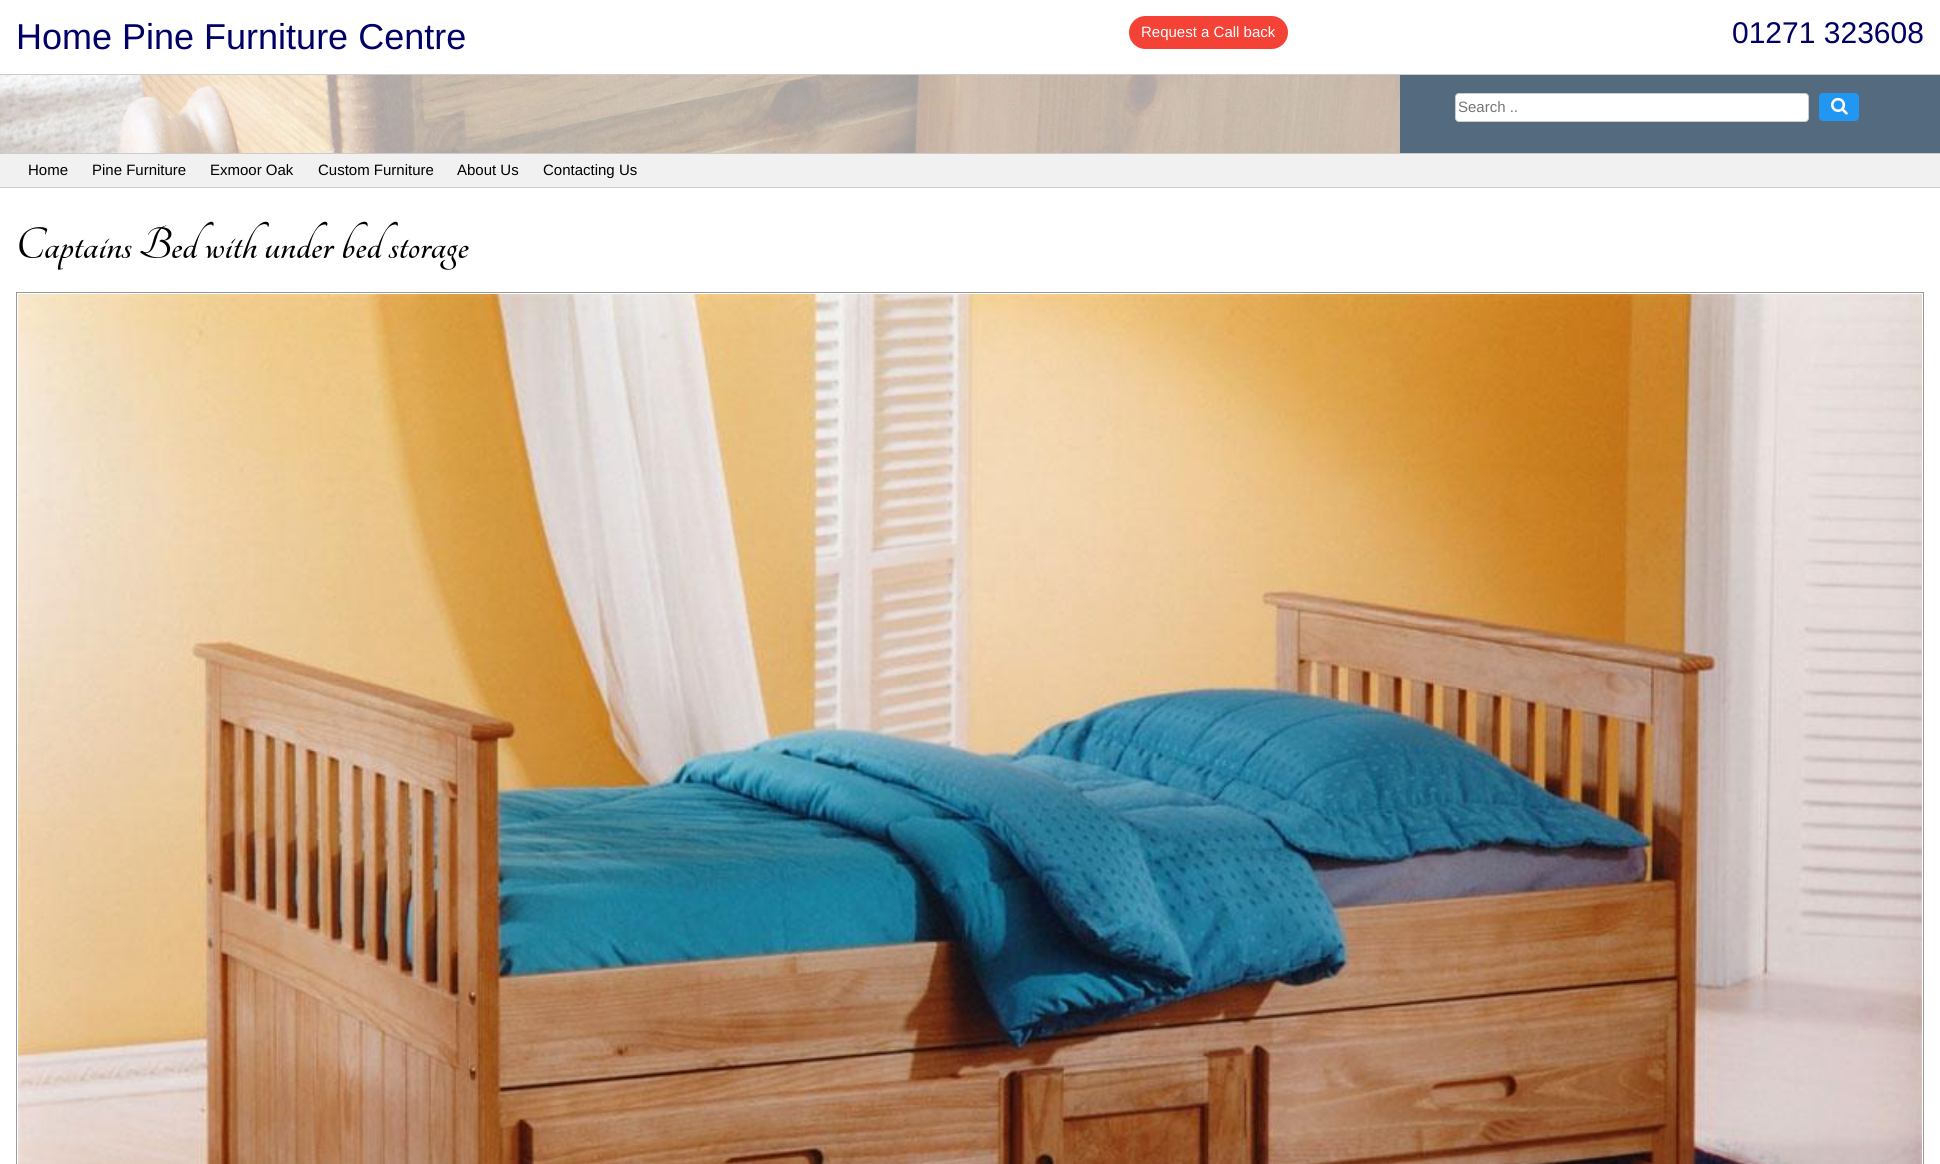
import math
import cairocffi as cairo

surface = cairo.ImageSurface(cairo.FORMAT_RGB24, 1940, 1164)
cr = cairo.Context(surface)
options = cairo.FontOptions()
options.set_hint_metrics(cairo.HINT_METRICS_OFF)
options.set_hint_style(cairo.HINT_STYLE_NONE)
cr.set_font_options(options)
cr.set_miter_limit(4)


def use_color(code):
    cr.set_source_rgb(*(v / 255 for v in bytes.fromhex(code[-6:])))


def round_rect(x, y, w, h, r):
    cr.new_sub_path()
    for i, (u, v) in enumerate([(x + w - r, y + h - r), (x + r, y + h - r), (x + r, y + r), (x + w - r, y + r)]):
        cr.arc(u, v, r, i * math.pi / 2, (i + 1) * math.pi / 2)
    cr.close_path()


def picture(path, x, y, w, h):
    cr.save()
    cr.set_source_surface(cairo.ImageSurface.create_from_png(path), x, y)
    cr.rectangle(x, y, w, h)
    cr.fill()
    cr.restore()


use_color("#546a7e")
cr.paint()
use_color("#ffffff")
cr.rectangle(0, 0, 1940, 74)
cr.fill()
cr.select_font_face("Liberation Sans")
cr.set_font_size(36)
use_color("#000066")
cr.move_to(16, 49)
cr.show_text("Home Pine Furniture Centre")
use_color("#f44336")
round_rect(1129, 16, 159, 33, 16.5)
cr.fill()
cr.set_font_size(15)
use_color("#ffffff")
cr.move_to(1141, 37)
cr.show_text("Request a Call back")
cr.set_font_size(30)
use_color("#000066")
cr.move_to(1732, 43)
cr.show_text("01271 323608")
picture("img1.png", 0, 75, 1400, 78)
use_color("#cccccc")
cr.rectangle(0, 74, 1940, 1)
cr.fill()
cr.rectangle(0, 153, 1940, 1)
cr.fill()
use_color("#ffffff")
round_rect(1455.5, 93.5, 353, 28, 3.5)
cr.fill_preserve()
use_color("#cccccc")
cr.set_line_width(1)
cr.stroke()
cr.set_font_size(15)
use_color("#757575")
cr.move_to(1458, 112)
cr.show_text("Search ..")
use_color("#2196f3")
round_rect(1819, 93, 40, 28, 4)
cr.fill()
picture("img2.png", 1831, 97, 17, 18)
use_color("#f1f1f1")
cr.rectangle(0, 154, 1940, 33)
cr.fill()
use_color("#000000")
cr.move_to(28, 175)
cr.show_text("Home")
cr.move_to(92, 175)
cr.show_text("Pine Furniture")
cr.move_to(210, 175)
cr.show_text("Exmoor Oak")
cr.move_to(318, 175)
cr.show_text("Custom Furniture")
cr.move_to(457, 175)
cr.show_text("About Us")
cr.move_to(543, 175)
cr.show_text("Contacting Us")
use_color("#ffffff")
cr.rectangle(0, 188, 1940, 976)
cr.fill()
use_color("#cccccc")
cr.rectangle(0, 187, 1940, 1)
cr.fill()
cr.select_font_face("Tangerine", cairo.FONT_SLANT_NORMAL, cairo.FONT_WEIGHT_BOLD)
cr.set_font_size(48)
use_color("#000000")
cr.move_to(16, 258)
cr.show_text("Captains Bed with under bed storage")
cr.rectangle(16.5, 292.5, 1907, 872)
use_color("#999999")
cr.stroke()
picture("img3.png", 18, 294, 1904, 870)
surface.write_to_png("result.png")
